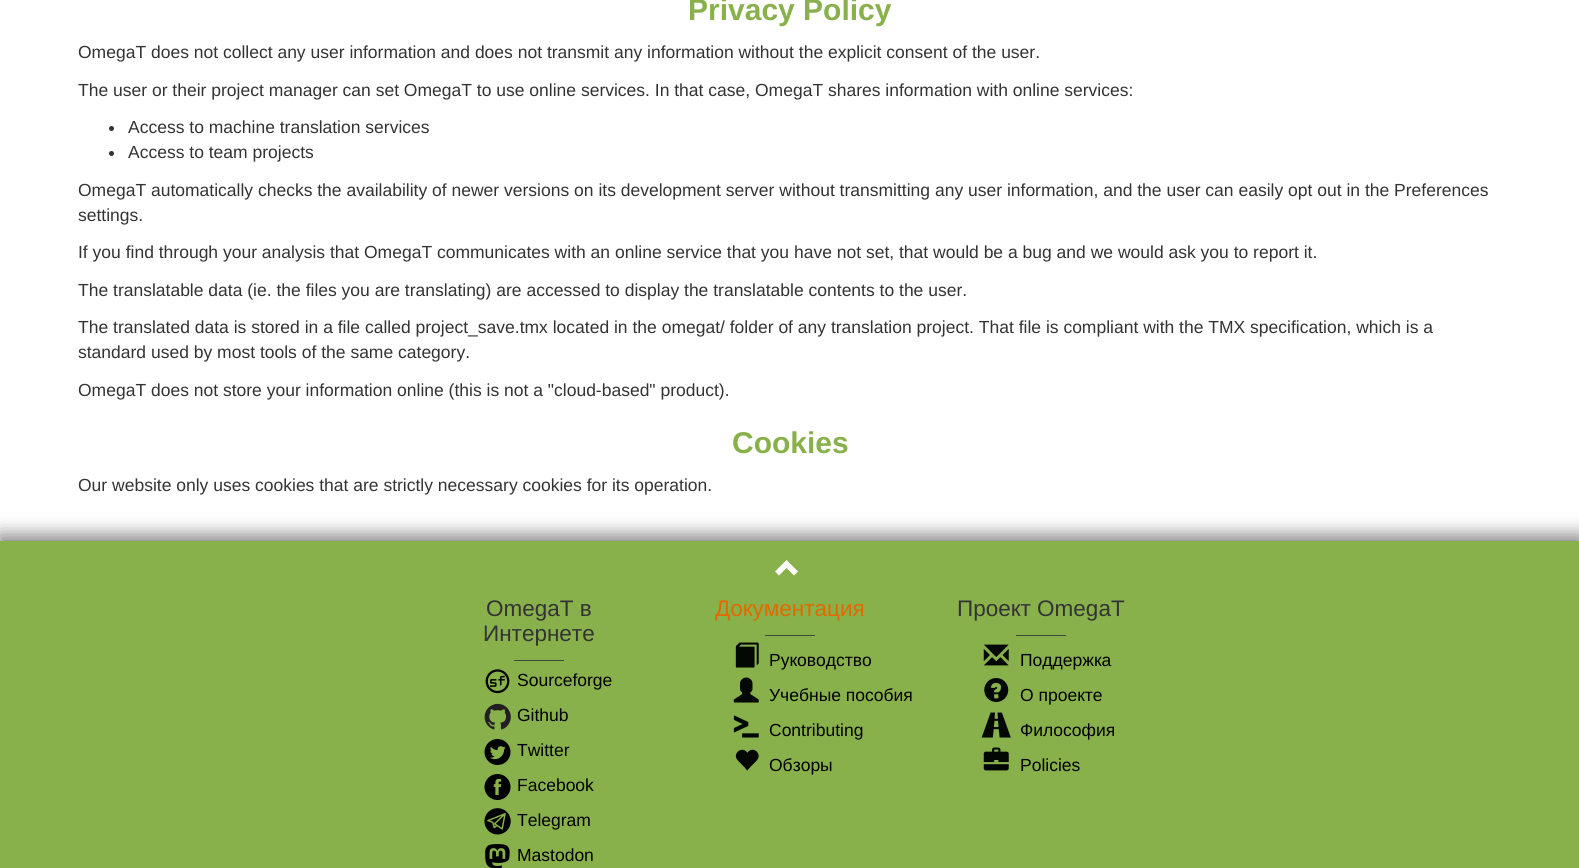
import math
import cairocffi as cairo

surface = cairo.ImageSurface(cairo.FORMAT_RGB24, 1579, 868)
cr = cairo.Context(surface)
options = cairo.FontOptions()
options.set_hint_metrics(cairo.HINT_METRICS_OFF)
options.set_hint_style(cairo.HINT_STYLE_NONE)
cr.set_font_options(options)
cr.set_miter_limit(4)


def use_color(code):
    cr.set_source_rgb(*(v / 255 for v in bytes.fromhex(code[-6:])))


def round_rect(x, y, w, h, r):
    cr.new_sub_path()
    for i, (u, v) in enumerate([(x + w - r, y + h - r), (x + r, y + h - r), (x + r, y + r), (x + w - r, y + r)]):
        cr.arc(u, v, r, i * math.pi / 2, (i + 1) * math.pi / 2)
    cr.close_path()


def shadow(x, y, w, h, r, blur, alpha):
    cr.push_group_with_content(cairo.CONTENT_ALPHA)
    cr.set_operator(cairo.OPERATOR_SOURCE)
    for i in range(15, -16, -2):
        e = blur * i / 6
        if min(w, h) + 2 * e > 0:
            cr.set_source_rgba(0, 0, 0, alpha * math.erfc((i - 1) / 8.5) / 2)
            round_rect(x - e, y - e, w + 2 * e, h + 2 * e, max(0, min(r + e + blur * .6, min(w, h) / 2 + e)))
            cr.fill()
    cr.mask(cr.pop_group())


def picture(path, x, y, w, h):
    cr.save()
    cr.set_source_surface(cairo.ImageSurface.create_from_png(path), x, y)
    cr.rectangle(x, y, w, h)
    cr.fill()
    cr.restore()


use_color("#ffffff")
cr.paint()
cr.select_font_face("Liberation Sans", cairo.FONT_SLANT_NORMAL, cairo.FONT_WEIGHT_BOLD)
cr.set_font_size(30)
use_color("#88b04b")
cr.move_to(688, 20)
cr.show_text("Privacy Policy")
cr.select_font_face("Liberation Sans")
cr.set_font_size(17.5)
use_color("#333333")
cr.move_to(78, 58)
cr.show_text("OmegaT does not collect any user information and does not transmit any information without the explicit consent of the user.")
cr.move_to(78, 96)
cr.show_text("The user or their project manager can set OmegaT to use online services. In that case, OmegaT shares information with online services:")
cr.new_path()
cr.arc(111.5, 128.5, 2.5, 0, 2 * math.pi)
cr.fill()
cr.move_to(128, 133)
cr.show_text("Access to machine translation services")
cr.new_path()
cr.arc(111.5, 153.5, 2.5, 0, 2 * math.pi)
cr.fill()
cr.move_to(128, 158)
cr.show_text("Access to team projects")
cr.move_to(78, 196)
cr.show_text("OmegaT automatically checks the availability of newer versions on its development server without transmitting any user information, and the user can easily opt out in the Preferences")
cr.move_to(78, 221)
cr.show_text("settings.")
cr.move_to(78, 258)
cr.show_text("If you find through your analysis that OmegaT communicates with an online service that you have not set, that would be a bug and we would ask you to report it.")
cr.move_to(78, 296)
cr.show_text("The translatable data (ie. the files you are translating) are accessed to display the translatable contents to the user.")
cr.move_to(78, 333)
cr.show_text("The translated data is stored in a file called project_save.tmx located in the omegat/ folder of any translation project. That file is compliant with the TMX specification, which is a")
cr.move_to(78, 358)
cr.show_text("standard used by most tools of the same category.")
cr.move_to(78, 396)
cr.show_text("OmegaT does not store your information online (this is not a \"cloud-based\" product).")
cr.select_font_face("Liberation Sans", cairo.FONT_SLANT_NORMAL, cairo.FONT_WEIGHT_BOLD)
cr.set_font_size(30)
use_color("#88b04b")
cr.move_to(732, 453)
cr.show_text("Cookies")
cr.select_font_face("Liberation Sans")
cr.set_font_size(17.5)
use_color("#333333")
cr.move_to(78, 491)
cr.show_text("Our website only uses cookies that are strictly necessary cookies for its operation.")
use_color("#000000")
shadow(-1, 535, 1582, 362, 0, 9.5, 0.5)
use_color("#88b04b")
cr.rectangle(0, 541, 1579, 327)
cr.fill()
use_color("#ffffff")
cr.new_path()
cr.move_to(798, 571.5)
cr.line_to(794, 575.5)
cr.line_to(786.5, 568)
cr.line_to(779, 575.5)
cr.line_to(775, 571.5)
cr.line_to(786.5, 560)
cr.close_path()
cr.fill()
cr.set_font_size(22.5)
use_color("#333333")
cr.move_to(486, 616)
cr.show_text("OmegaT в")
cr.move_to(483, 641)
cr.show_text("Интернете")
use_color("#3d4a3e")
cr.rectangle(514, 660, 50, 1)
cr.fill()
picture("img1.png", 485, 669, 25, 25)
cr.set_font_size(17.5)
use_color("#000000")
cr.move_to(517, 686)
cr.show_text("Sourceforge")
picture("img2.png", 484, 703, 27, 27)
cr.move_to(517, 721)
cr.show_text("Github")
picture("img3.png", 484, 739, 27, 26)
cr.move_to(517, 756)
cr.show_text("Twitter")
picture("img4.png", 484, 774, 27, 26)
cr.move_to(517, 791)
cr.show_text("Facebook")
picture("img5.png", 484, 808, 27, 27)
cr.move_to(517, 826)
cr.show_text("Telegram")
picture("img6.png", 485, 844, 25, 24)
cr.move_to(517, 861)
cr.show_text("Mastodon")
cr.set_font_size(22.5)
use_color("#e46800")
cr.move_to(715, 616)
cr.show_text("Документация")
use_color("#3d4a3e")
cr.rectangle(765, 635, 50, 1)
cr.fill()
picture("img7.png", 735, 642, 24, 26)
cr.set_font_size(17.5)
use_color("#000000")
cr.move_to(769, 666)
cr.show_text("Руководство")
picture("img8.png", 733, 677, 26, 26)
cr.move_to(769, 701)
cr.show_text("Учебные пособия")
picture("img9.png", 733, 715, 26, 23)
cr.move_to(769, 736)
cr.show_text("Contributing")
picture("img10.png", 735, 749, 24, 22)
cr.move_to(769, 771)
cr.show_text("Обзоры")
cr.set_font_size(22.5)
use_color("#333333")
cr.move_to(957, 616)
cr.show_text("Проект OmegaT")
use_color("#3d4a3e")
cr.rectangle(1016, 635, 50, 1)
cr.fill()
picture("img11.png", 983, 644, 26, 22)
cr.set_font_size(17.5)
use_color("#000000")
cr.move_to(1020, 666)
cr.show_text("Поддержка")
picture("img12.png", 984, 678, 25, 24)
cr.move_to(1020, 701)
cr.show_text("О проекте")
picture("img13.png", 981, 712, 30, 26)
cr.move_to(1020, 736)
cr.show_text("Философия")
picture("img14.png", 983, 747, 26, 24)
cr.move_to(1020, 771)
cr.show_text("Policies")
surface.write_to_png("result.png")
